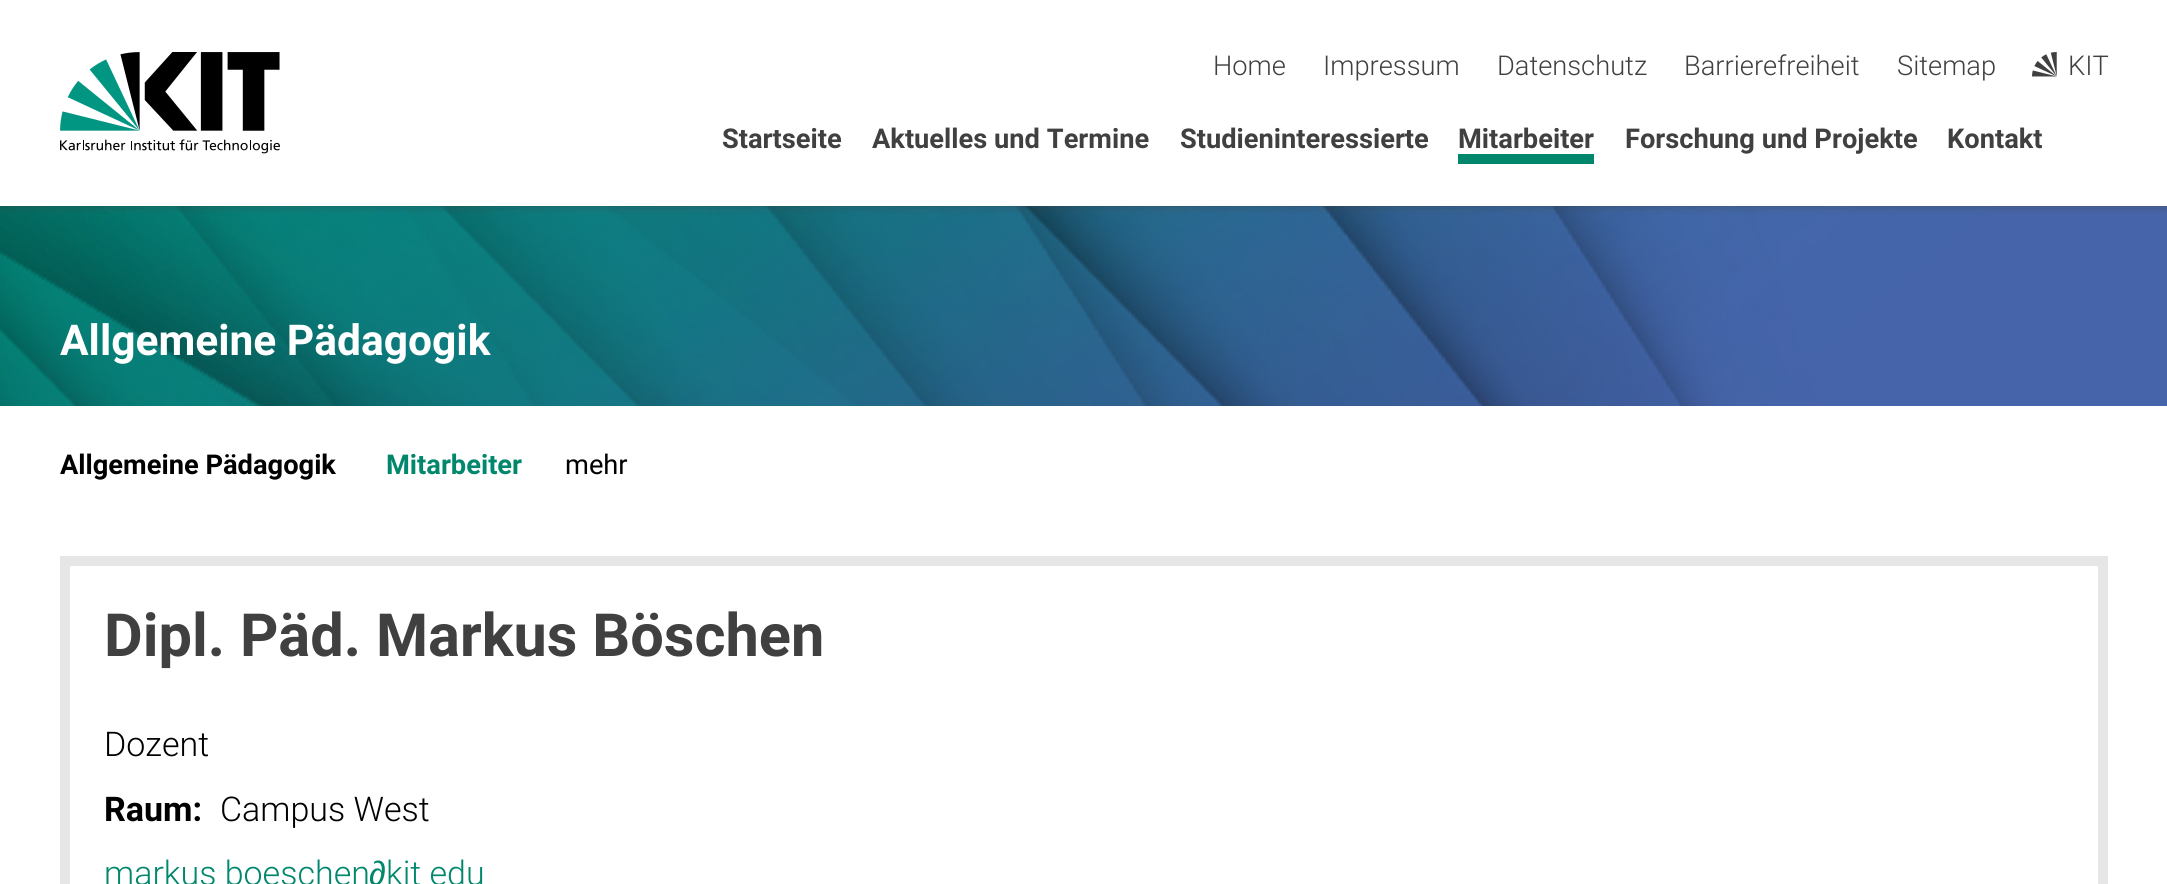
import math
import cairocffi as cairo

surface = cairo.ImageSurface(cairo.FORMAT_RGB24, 2167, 884)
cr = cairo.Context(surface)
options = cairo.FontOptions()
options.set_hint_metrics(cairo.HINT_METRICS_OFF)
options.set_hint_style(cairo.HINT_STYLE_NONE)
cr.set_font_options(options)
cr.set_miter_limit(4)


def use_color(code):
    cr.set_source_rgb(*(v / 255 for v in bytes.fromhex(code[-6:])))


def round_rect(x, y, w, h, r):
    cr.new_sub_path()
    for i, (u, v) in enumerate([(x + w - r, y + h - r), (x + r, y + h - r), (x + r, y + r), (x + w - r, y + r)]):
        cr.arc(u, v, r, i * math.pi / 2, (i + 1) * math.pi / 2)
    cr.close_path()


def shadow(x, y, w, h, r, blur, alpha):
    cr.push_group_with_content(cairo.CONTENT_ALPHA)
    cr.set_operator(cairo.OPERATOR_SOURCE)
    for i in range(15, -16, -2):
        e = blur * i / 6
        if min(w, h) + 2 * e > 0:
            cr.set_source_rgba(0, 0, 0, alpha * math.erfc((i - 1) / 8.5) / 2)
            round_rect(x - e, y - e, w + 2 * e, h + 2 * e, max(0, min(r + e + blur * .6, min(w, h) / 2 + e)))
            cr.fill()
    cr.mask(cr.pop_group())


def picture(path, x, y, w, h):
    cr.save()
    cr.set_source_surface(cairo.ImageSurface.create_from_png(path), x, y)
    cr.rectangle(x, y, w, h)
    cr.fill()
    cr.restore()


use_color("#ffffff")
cr.paint()
picture("img3.png", 0, 206, 2167, 200)
cr.save()
cr.rectangle(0, 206, 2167, 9)
cr.clip()
use_color("#404040")
shadow(0, 0, 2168, 206, 0, 5, 0.5)
cr.restore()
picture("img1.png", 60, 52, 220, 102)
cr.select_font_face("Roboto Light")
cr.set_font_size(27.25)
use_color("#404040")
cr.move_to(1213, 75)
cr.show_text("Home")
cr.move_to(1323, 75)
cr.show_text("Impressum")
cr.move_to(1497, 75)
cr.show_text("Datenschutz")
cr.move_to(1684, 75)
cr.show_text("Barrierefreiheit")
cr.move_to(1897, 75)
cr.show_text("Sitemap")
picture("img2.png", 2032, 52, 25, 25)
cr.move_to(2068, 75)
cr.show_text("KIT")
cr.select_font_face("Roboto", cairo.FONT_SLANT_NORMAL, cairo.FONT_WEIGHT_BOLD)
cr.move_to(722, 148)
cr.show_text("Startseite")
cr.move_to(872, 148)
cr.show_text("Aktuelles und Termine")
cr.move_to(1180, 148)
cr.show_text("Studieninteressierte")
cr.move_to(1458, 148)
cr.show_text("Mitarbeiter")
use_color("#00876c")
cr.rectangle(1458, 154, 136, 10)
cr.fill()
use_color("#404040")
cr.move_to(1625, 148)
cr.show_text("Forschung und Projekte")
cr.move_to(1947, 148)
cr.show_text("Kontakt")
cr.set_font_size(42.5)
use_color("#ffffff")
cr.move_to(60, 355)
cr.show_text("Allgemeine Pädagogik")
cr.set_font_size(27.25)
use_color("#000000")
cr.move_to(60, 474)
cr.show_text("Allgemeine Pädagogik")
use_color("#00876c")
cr.move_to(386, 474)
cr.show_text("Mitarbeiter")
cr.select_font_face("Roboto")
use_color("#000000")
cr.move_to(565, 474)
cr.show_text("mehr")
cr.rectangle(65, 561, 2038, 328)
use_color("#e6e6e6")
cr.set_line_width(10)
cr.stroke()
cr.select_font_face("Roboto", cairo.FONT_SLANT_NORMAL, cairo.FONT_WEIGHT_BOLD)
cr.set_font_size(59.5)
use_color("#404040")
cr.move_to(104, 656)
cr.show_text("Dipl. Päd. Markus Böschen")
cr.select_font_face("Roboto Light")
cr.set_font_size(34)
use_color("#000000")
cr.move_to(104, 756)
cr.show_text("Dozent")
cr.select_font_face("Roboto", cairo.FONT_SLANT_NORMAL, cairo.FONT_WEIGHT_BOLD)
cr.move_to(104, 821)
cr.show_text("Raum:")
cr.select_font_face("Roboto Light")
cr.move_to(220, 821)
cr.show_text("Campus West")
use_color("#00876c")
cr.move_to(104, 885)
cr.show_text("markus boeschen")
cr.select_font_face("Liberation Sans")
cr.move_to(369, 885)
cr.show_text("∂")
cr.select_font_face("Roboto Light")
cr.move_to(386, 885)
cr.show_text("kit edu")
surface.write_to_png("result.png")
